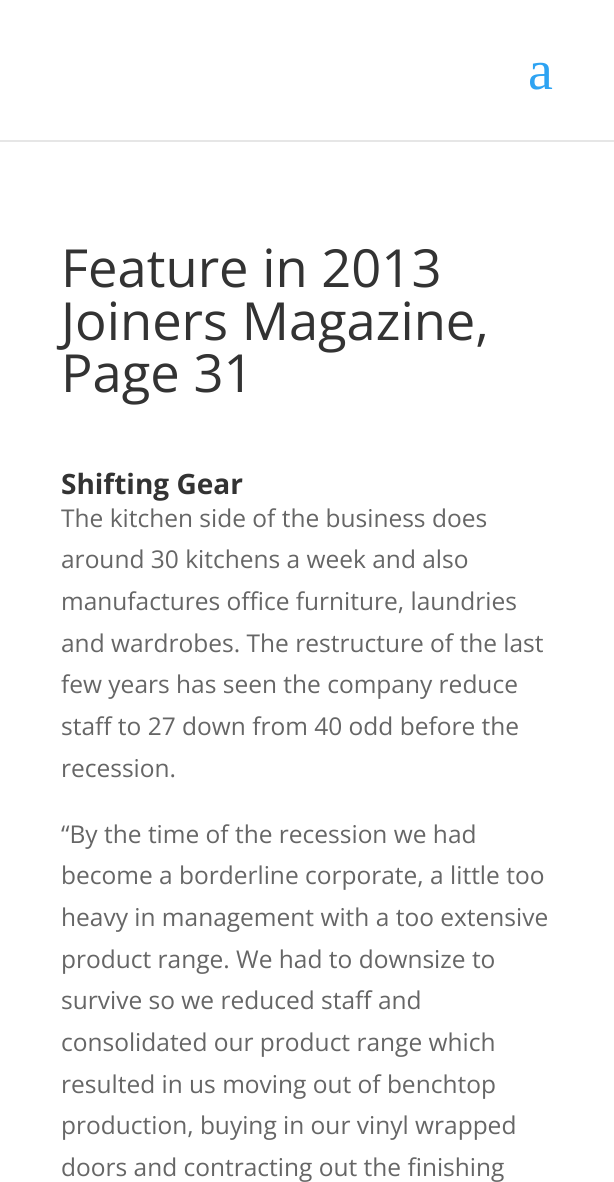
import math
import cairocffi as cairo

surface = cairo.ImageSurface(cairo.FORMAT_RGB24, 614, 1182)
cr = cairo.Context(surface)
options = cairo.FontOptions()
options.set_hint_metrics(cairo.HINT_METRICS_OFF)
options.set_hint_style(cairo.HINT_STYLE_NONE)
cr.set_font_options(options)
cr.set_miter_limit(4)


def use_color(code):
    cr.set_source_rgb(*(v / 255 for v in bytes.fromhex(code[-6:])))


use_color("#ffffff")
cr.paint()
use_color("#e6e6e6")
cr.rectangle(0, 140, 614, 2)
cr.fill()
cr.select_font_face("Liberation Serif")
cr.set_font_size(56)
use_color("#2ea3f2")
cr.move_to(528, 89)
cr.show_text("a")
cr.select_font_face("Open Sans")
cr.set_font_size(52.5)
use_color("#333333")
cr.move_to(61, 287)
cr.show_text("Feature in 2013")
cr.move_to(61, 340)
cr.show_text("Joiners Magazine,")
cr.move_to(61, 392)
cr.show_text("Page 31")
cr.select_font_face("Open Sans", cairo.FONT_SLANT_NORMAL, cairo.FONT_WEIGHT_BOLD)
cr.set_font_size(28)
cr.move_to(61, 494)
cr.show_text("Shifting Gear")
cr.select_font_face("Open Sans")
cr.set_font_size(24.5)
use_color("#666666")
cr.move_to(61, 527)
cr.show_text("The kitchen side of the business does")
cr.move_to(61, 568)
cr.show_text("around 30 kitchens a week and also")
cr.move_to(61, 610)
cr.show_text("manufactures office furniture, laundries")
cr.move_to(61, 652)
cr.show_text("and wardrobes. The restructure of the last")
cr.move_to(61, 693)
cr.show_text("few years has seen the company reduce")
cr.move_to(61, 735)
cr.show_text("staff to 27 down from 40 odd before the")
cr.move_to(61, 777)
cr.show_text("recession.")
cr.move_to(61, 843)
cr.show_text("“By the time of the recession we had")
cr.move_to(61, 884)
cr.show_text("become a borderline corporate, a little too")
cr.move_to(61, 926)
cr.show_text("heavy in management with a too extensive")
cr.move_to(61, 968)
cr.show_text("product range. We had to downsize to")
cr.move_to(61, 1009)
cr.show_text("survive so we reduced staff and")
cr.move_to(61, 1051)
cr.show_text("consolidated our product range which")
cr.move_to(61, 1093)
cr.show_text("resulted in us moving out of benchtop")
cr.move_to(61, 1134)
cr.show_text("production, buying in our vinyl wrapped")
cr.move_to(61, 1176)
cr.show_text("doors and contracting out the finishing")
surface.write_to_png("result.png")
